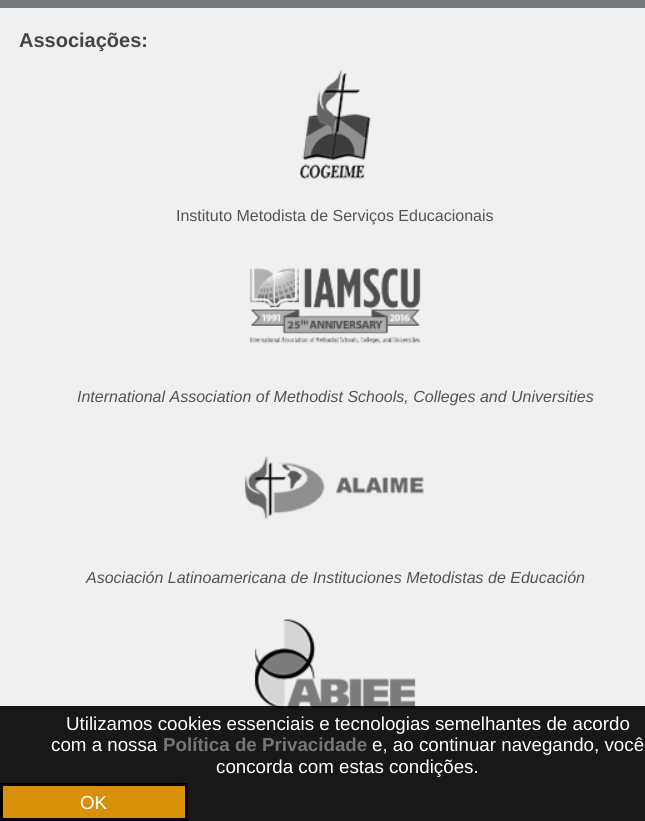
import math
import cairocffi as cairo

surface = cairo.ImageSurface(cairo.FORMAT_RGB24, 645, 821)
cr = cairo.Context(surface)
options = cairo.FontOptions()
options.set_hint_metrics(cairo.HINT_METRICS_OFF)
options.set_hint_style(cairo.HINT_STYLE_NONE)
cr.set_font_options(options)
cr.set_miter_limit(4)


def use_color(code):
    cr.set_source_rgb(*(v / 255 for v in bytes.fromhex(code[-6:])))


def picture(path, x, y, w, h):
    cr.save()
    cr.set_source_surface(cairo.ImageSurface.create_from_png(path), x, y)
    cr.rectangle(x, y, w, h)
    cr.fill()
    cr.restore()


use_color("#ffffff")
cr.paint()
use_color("#73777a")
cr.rectangle(0, 0, 645, 8)
cr.fill()
use_color("#f0f0f0")
cr.rectangle(0, 8, 645, 798)
cr.fill()
cr.select_font_face("Liberation Sans", cairo.FONT_SLANT_NORMAL, cairo.FONT_WEIGHT_BOLD)
cr.set_font_size(20)
use_color("#444444")
cr.move_to(19, 47)
cr.show_text("Associações:")
picture("img1.png", 299, 69, 72, 110)
cr.select_font_face("Liberation Sans")
cr.set_font_size(16)
use_color("#535353")
cr.move_to(176, 221)
cr.show_text("Instituto Metodista de Serviços Educacionais")
picture("img2.png", 249, 268, 172, 76)
cr.select_font_face("Liberation Sans", cairo.FONT_SLANT_ITALIC)
cr.move_to(77, 402)
cr.show_text("International Association of Methodist Schools, Colleges and Universities")
picture("img3.png", 244, 456, 180, 64)
cr.move_to(86, 583)
cr.show_text("Asociación Latinoamericana de Instituciones Metodistas de Educación")
picture("img4.png", 254, 619, 162, 96)
cr.set_source_rgba(0, 0, 0, 0.9)
cr.rectangle(0, 706, 645, 115)
cr.fill()
cr.select_font_face("Liberation Sans")
cr.set_font_size(18.75)
use_color("#ffffff")
cr.move_to(66, 730)
cr.show_text("Utilizamos cookies essenciais e tecnologias semelhantes de acordo")
cr.move_to(51, 751)
cr.show_text("com a nossa")
cr.select_font_face("Liberation Sans", cairo.FONT_SLANT_NORMAL, cairo.FONT_WEIGHT_BOLD)
use_color("#73777a")
cr.move_to(163, 751)
cr.show_text("Política de Privacidade")
cr.select_font_face("Liberation Sans")
use_color("#ffffff")
cr.move_to(372, 751)
cr.show_text("e, ao continuar navegando, você")
cr.move_to(216, 773)
cr.show_text("concorda com estas condições.")
use_color("#d9910b")
cr.rectangle(1.5, 784.5, 185, 35)
cr.fill_preserve()
use_color("#000000")
cr.set_line_width(3)
cr.stroke()
use_color("#ffffff")
cr.move_to(80, 809)
cr.show_text("OK")
surface.write_to_png("result.png")
